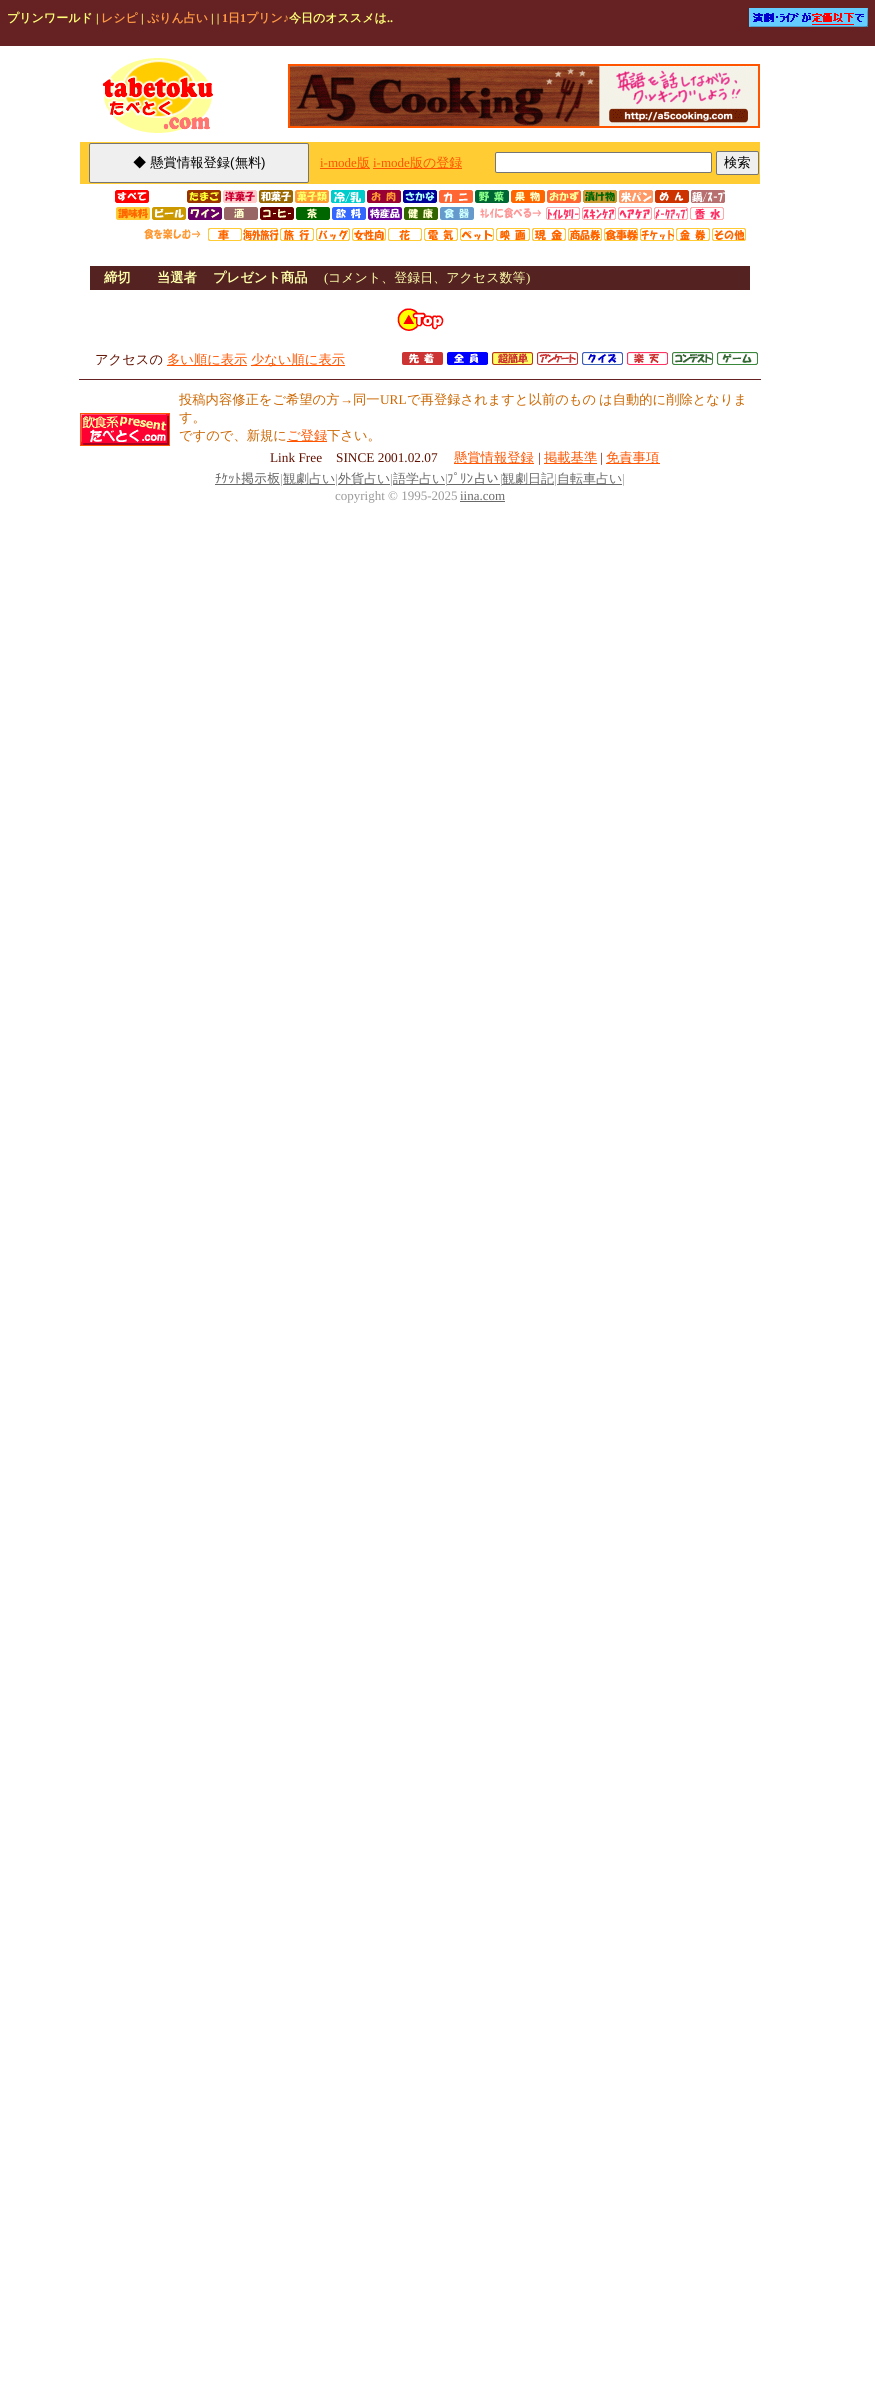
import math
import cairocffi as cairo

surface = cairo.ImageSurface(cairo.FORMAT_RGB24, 875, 2385)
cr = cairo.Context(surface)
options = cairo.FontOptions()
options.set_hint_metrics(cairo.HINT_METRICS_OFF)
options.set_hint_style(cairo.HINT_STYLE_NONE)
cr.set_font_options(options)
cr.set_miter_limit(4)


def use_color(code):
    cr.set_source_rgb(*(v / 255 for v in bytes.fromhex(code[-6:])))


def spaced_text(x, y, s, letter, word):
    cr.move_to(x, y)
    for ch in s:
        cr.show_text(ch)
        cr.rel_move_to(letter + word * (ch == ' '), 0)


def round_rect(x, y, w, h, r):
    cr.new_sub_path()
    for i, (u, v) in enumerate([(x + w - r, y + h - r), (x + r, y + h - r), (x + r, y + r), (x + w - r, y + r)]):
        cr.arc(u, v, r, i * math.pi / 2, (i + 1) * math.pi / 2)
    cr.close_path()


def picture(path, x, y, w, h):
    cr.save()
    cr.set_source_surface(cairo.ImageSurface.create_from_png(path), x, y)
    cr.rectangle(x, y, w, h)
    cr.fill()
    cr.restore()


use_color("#ffffff")
cr.paint()
use_color("#662222")
cr.rectangle(0, 0, 875, 46)
cr.fill()
cr.select_font_face("WenQuanYi Zen Hei", cairo.FONT_SLANT_NORMAL, cairo.FONT_WEIGHT_BOLD)
cr.set_font_size(12)
use_color("#ffff77")
cr.move_to(7, 22)
cr.show_text("プリンワールド")
cr.select_font_face("Liberation Serif", cairo.FONT_SLANT_NORMAL, cairo.FONT_WEIGHT_BOLD)
cr.move_to(96, 22)
cr.show_text("|")
cr.select_font_face("WenQuanYi Zen Hei", cairo.FONT_SLANT_NORMAL, cairo.FONT_WEIGHT_BOLD)
use_color("#ff9944")
cr.move_to(101, 22)
cr.show_text("レシピ")
cr.select_font_face("Liberation Serif", cairo.FONT_SLANT_NORMAL, cairo.FONT_WEIGHT_BOLD)
use_color("#ffff77")
cr.move_to(141, 22)
cr.show_text("|")
cr.select_font_face("WenQuanYi Zen Hei", cairo.FONT_SLANT_NORMAL, cairo.FONT_WEIGHT_BOLD)
use_color("#ff9944")
cr.move_to(147, 22)
cr.show_text("ぷりん占い")
cr.select_font_face("Liberation Serif", cairo.FONT_SLANT_NORMAL, cairo.FONT_WEIGHT_BOLD)
use_color("#ffff77")
cr.move_to(211, 22)
cr.show_text("| |")
use_color("#ff9944")
cr.move_to(222, 22)
cr.show_text("1")
cr.select_font_face("WenQuanYi Zen Hei", cairo.FONT_SLANT_NORMAL, cairo.FONT_WEIGHT_BOLD)
cr.move_to(228, 22)
cr.show_text("日")
cr.select_font_face("Liberation Serif", cairo.FONT_SLANT_NORMAL, cairo.FONT_WEIGHT_BOLD)
cr.move_to(240, 22)
cr.show_text("1")
cr.select_font_face("WenQuanYi Zen Hei", cairo.FONT_SLANT_NORMAL, cairo.FONT_WEIGHT_BOLD)
cr.move_to(246, 22)
cr.show_text("プリン")
cr.select_font_face("Liberation Serif", cairo.FONT_SLANT_NORMAL, cairo.FONT_WEIGHT_BOLD)
cr.move_to(283, 22)
cr.show_text("♪")
cr.select_font_face("WenQuanYi Zen Hei", cairo.FONT_SLANT_NORMAL, cairo.FONT_WEIGHT_BOLD)
use_color("#ffff77")
cr.move_to(289, 22)
cr.show_text("今日のオススメは")
cr.select_font_face("Liberation Serif", cairo.FONT_SLANT_NORMAL, cairo.FONT_WEIGHT_BOLD)
cr.move_to(387, 22)
cr.show_text("..")
picture("img1.png", 749, 8, 119, 19)
picture("img2.png", 102, 58, 111, 75)
cr.rectangle(289, 65, 470, 62)
use_color("#ff5500")
cr.stroke()
picture("img3.png", 290, 66, 468, 60)
use_color("#ffcc33")
cr.rectangle(80, 142, 680, 42)
cr.fill()
use_color("#efefef")
round_rect(89.5, 143.5, 219, 39, 1.5)
cr.fill_preserve()
use_color("#767676")
cr.set_line_width(1)
cr.stroke()
cr.select_font_face("WenQuanYi Zen Hei Medium")
cr.set_font_size(13.3)
use_color("#000000")
cr.move_to(133, 167)
cr.show_text("◆ 懸賞情報登録")
cr.select_font_face("Liberation Sans")
cr.move_to(230, 167)
cr.show_text("(")
cr.select_font_face("WenQuanYi Zen Hei Medium")
cr.move_to(235, 167)
cr.show_text("無料")
cr.select_font_face("Liberation Sans")
cr.move_to(261, 167)
cr.show_text(")")
cr.select_font_face("Liberation Serif")
cr.set_font_size(13)
use_color("#ff5500")
cr.move_to(320, 167)
cr.show_text("i-mode")
cr.rectangle(320, 168, 50, 1)
cr.fill()
cr.select_font_face("WenQuanYi Zen Hei Medium")
cr.move_to(357, 167)
cr.show_text("版")
cr.select_font_face("Liberation Serif")
cr.move_to(373, 167)
cr.show_text("i-mode")
cr.rectangle(373, 168, 89, 1)
cr.fill()
cr.select_font_face("WenQuanYi Zen Hei Medium")
cr.move_to(410, 167)
cr.show_text("版の登録")
use_color("#ffffff")
round_rect(495.5, 152.5, 216, 20, 1.5)
cr.fill_preserve()
use_color("#767676")
cr.stroke()
use_color("#efefef")
round_rect(716.5, 151.5, 42, 23, 1.5)
cr.fill_preserve()
use_color("#767676")
cr.stroke()
cr.set_font_size(13.3)
use_color("#000000")
cr.move_to(724, 167)
cr.show_text("検索")
picture("img4.png", 115, 190, 34, 13)
picture("img5.png", 187, 190, 34, 13)
picture("img6.png", 223, 190, 34, 13)
picture("img7.png", 259, 190, 34, 13)
picture("img8.png", 295, 190, 34, 13)
picture("img9.png", 331, 190, 34, 13)
picture("img10.png", 367, 190, 34, 13)
picture("img11.png", 403, 190, 34, 13)
picture("img12.png", 439, 190, 34, 13)
picture("img13.png", 475, 190, 34, 13)
picture("img14.png", 511, 190, 34, 13)
picture("img15.png", 547, 190, 34, 13)
picture("img16.png", 583, 190, 34, 13)
picture("img17.png", 619, 190, 34, 13)
picture("img18.png", 655, 190, 34, 13)
picture("img19.png", 691, 190, 34, 13)
picture("img20.png", 116, 207, 34, 13)
picture("img21.png", 152, 207, 34, 13)
picture("img22.png", 188, 207, 34, 13)
picture("img23.png", 224, 207, 34, 13)
picture("img24.png", 260, 207, 34, 13)
picture("img25.png", 296, 207, 34, 13)
picture("img26.png", 332, 207, 34, 13)
picture("img27.png", 368, 207, 34, 13)
picture("img28.png", 404, 207, 34, 13)
picture("img29.png", 440, 207, 34, 13)
picture("img30.png", 480, 207, 61, 12)
picture("img31.png", 546, 207, 34, 13)
picture("img32.png", 582, 207, 34, 13)
picture("img33.png", 618, 207, 34, 13)
picture("img34.png", 654, 207, 34, 13)
picture("img35.png", 690, 207, 34, 13)
picture("img36.png", 144, 228, 57, 12)
picture("img37.png", 208, 228, 34, 13)
picture("img38.png", 243, 228, 36, 13)
picture("img39.png", 280, 228, 34, 13)
picture("img40.png", 316, 228, 34, 13)
picture("img41.png", 352, 228, 34, 13)
picture("img42.png", 388, 228, 34, 13)
picture("img43.png", 424, 228, 34, 13)
picture("img44.png", 460, 228, 34, 13)
picture("img45.png", 496, 228, 34, 13)
picture("img46.png", 532, 228, 34, 13)
picture("img47.png", 568, 228, 34, 13)
picture("img48.png", 604, 228, 34, 13)
picture("img49.png", 640, 228, 34, 13)
picture("img50.png", 676, 228, 34, 13)
picture("img51.png", 712, 228, 34, 13)
use_color("#552222")
cr.rectangle(90, 266, 660, 24)
cr.fill()
cr.select_font_face("WenQuanYi Zen Hei", cairo.FONT_SLANT_NORMAL, cairo.FONT_WEIGHT_BOLD)
use_color("#ffffaa")
cr.move_to(104, 282)
cr.show_text("締切")
cr.move_to(157, 282)
cr.show_text("当選者")
cr.move_to(213, 282)
cr.show_text("プレゼント商品")
cr.select_font_face("Liberation Serif")
cr.set_font_size(13)
cr.move_to(324, 282)
cr.show_text("(")
cr.select_font_face("WenQuanYi Zen Hei Medium")
cr.move_to(328, 282)
cr.show_text("コメント、登録日、アクセス数等")
cr.select_font_face("Liberation Serif")
cr.move_to(526, 282)
cr.show_text(")")
picture("img52.png", 397, 308, 47, 23)
cr.select_font_face("WenQuanYi Zen Hei Medium")
cr.set_font_size(13.3)
use_color("#601000")
cr.move_to(95, 364)
cr.show_text("アクセスの")
use_color("#ff5500")
cr.rectangle(167, 365, 80, 1)
cr.fill()
cr.move_to(167, 364)
cr.show_text("多い順に表示")
cr.rectangle(251, 365, 94, 1)
cr.fill()
cr.move_to(251, 364)
cr.show_text("少ない順に表示")
picture("img53.png", 402, 352, 41, 13)
picture("img54.png", 447, 352, 41, 13)
picture("img55.png", 492, 352, 41, 13)
picture("img56.png", 537, 352, 41, 13)
picture("img57.png", 582, 352, 41, 13)
picture("img58.png", 627, 352, 41, 13)
picture("img59.png", 672, 352, 41, 13)
picture("img60.png", 717, 352, 41, 13)
use_color("#662222")
cr.rectangle(79, 379, 682, 1)
cr.fill()
cr.rectangle(80.5, 413.5, 89, 32)
use_color("#ff5500")
cr.stroke()
picture("img61.png", 81, 414, 88, 31)
use_color("#cc6600")
cr.move_to(179, 404)
cr.show_text("投稿内容修正をご希望の方")
cr.select_font_face("Liberation Serif")
cr.move_to(340, 404)
cr.show_text("→")
cr.select_font_face("WenQuanYi Zen Hei Medium")
cr.move_to(353, 404)
cr.show_text("同一")
cr.select_font_face("Liberation Serif")
cr.move_to(380, 404)
cr.show_text("URL")
cr.select_font_face("WenQuanYi Zen Hei Medium")
spaced_text(407, 404, "で再登録されますと以前のもの は自動的に削除となりま", 0, -1)
cr.move_to(179, 422)
cr.show_text("す。")
cr.move_to(179, 440)
cr.show_text("ですので、新規に")
use_color("#ff5500")
cr.rectangle(287, 441, 40, 1)
cr.fill()
cr.move_to(287, 440)
cr.show_text("ご登録")
use_color("#cc6600")
cr.move_to(327, 440)
cr.show_text("下さい。")
cr.select_font_face("Liberation Serif")
use_color("#601000")
cr.move_to(270, 462)
cr.show_text("Link Free")
cr.move_to(336, 462)
cr.show_text("SINCE 2001.02.07")
use_color("#ff5500")
cr.rectangle(454, 463, 80, 1)
cr.fill()
cr.select_font_face("WenQuanYi Zen Hei Medium")
cr.move_to(454, 462)
cr.show_text("懸賞情報登録")
cr.select_font_face("Liberation Serif")
use_color("#601000")
cr.move_to(538, 462)
cr.show_text("|")
use_color("#ff5500")
cr.rectangle(544, 463, 53, 1)
cr.fill()
cr.select_font_face("WenQuanYi Zen Hei Medium")
cr.move_to(544, 462)
cr.show_text("掲載基準")
cr.select_font_face("Liberation Serif")
use_color("#601000")
cr.move_to(600, 462)
cr.show_text("|")
use_color("#ff5500")
cr.rectangle(606, 463, 54, 1)
cr.fill()
cr.select_font_face("WenQuanYi Zen Hei Medium")
cr.move_to(606, 462)
cr.show_text("免責事項")
cr.select_font_face("IPAGothic")
cr.set_font_size(13)
use_color("#696969")
cr.move_to(215, 483)
cr.show_text("ﾁｹｯﾄ掲示板")
cr.select_font_face("Liberation Serif")
use_color("#999999")
cr.move_to(280, 483)
cr.show_text("|")
use_color("#696969")
cr.rectangle(215, 484, 65, 1)
cr.fill()
cr.rectangle(283, 484, 52, 1)
cr.fill()
cr.select_font_face("WenQuanYi Zen Hei Medium")
cr.move_to(283, 483)
cr.show_text("観劇占い")
cr.select_font_face("Liberation Serif")
use_color("#999999")
cr.move_to(335, 483)
cr.show_text("|")
use_color("#696969")
cr.rectangle(338, 484, 52, 1)
cr.fill()
cr.select_font_face("WenQuanYi Zen Hei Medium")
cr.move_to(338, 483)
cr.show_text("外貨占い")
cr.select_font_face("Liberation Serif")
use_color("#999999")
cr.move_to(390, 483)
cr.show_text("|")
use_color("#696969")
cr.rectangle(393, 484, 52, 1)
cr.fill()
cr.select_font_face("WenQuanYi Zen Hei Medium")
cr.move_to(393, 483)
cr.show_text("語学占い")
cr.select_font_face("Liberation Serif")
use_color("#999999")
cr.move_to(445, 483)
cr.show_text("|")
use_color("#696969")
cr.rectangle(447, 484, 53, 1)
cr.fill()
cr.select_font_face("IPAGothic")
cr.move_to(447, 483)
cr.show_text("ﾌﾟﾘﾝ占い")
cr.select_font_face("Liberation Serif")
use_color("#999999")
cr.move_to(500, 483)
cr.show_text("|")
use_color("#696969")
cr.rectangle(502, 484, 52, 1)
cr.fill()
cr.select_font_face("WenQuanYi Zen Hei Medium")
cr.move_to(502, 483)
cr.show_text("観劇日記")
cr.select_font_face("Liberation Serif")
use_color("#999999")
cr.move_to(554, 483)
cr.show_text("|")
use_color("#696969")
cr.rectangle(557, 484, 65, 1)
cr.fill()
cr.select_font_face("WenQuanYi Zen Hei Medium")
cr.move_to(557, 483)
cr.show_text("自転車占い")
cr.select_font_face("Liberation Serif")
use_color("#999999")
cr.move_to(622, 483)
cr.show_text("|")
cr.move_to(335, 500)
cr.show_text("copyright © 1995-2025")
use_color("#696969")
cr.move_to(460, 500)
cr.show_text("iina.com")
cr.rectangle(460, 501, 45, 1)
cr.fill()
surface.write_to_png("result.png")
